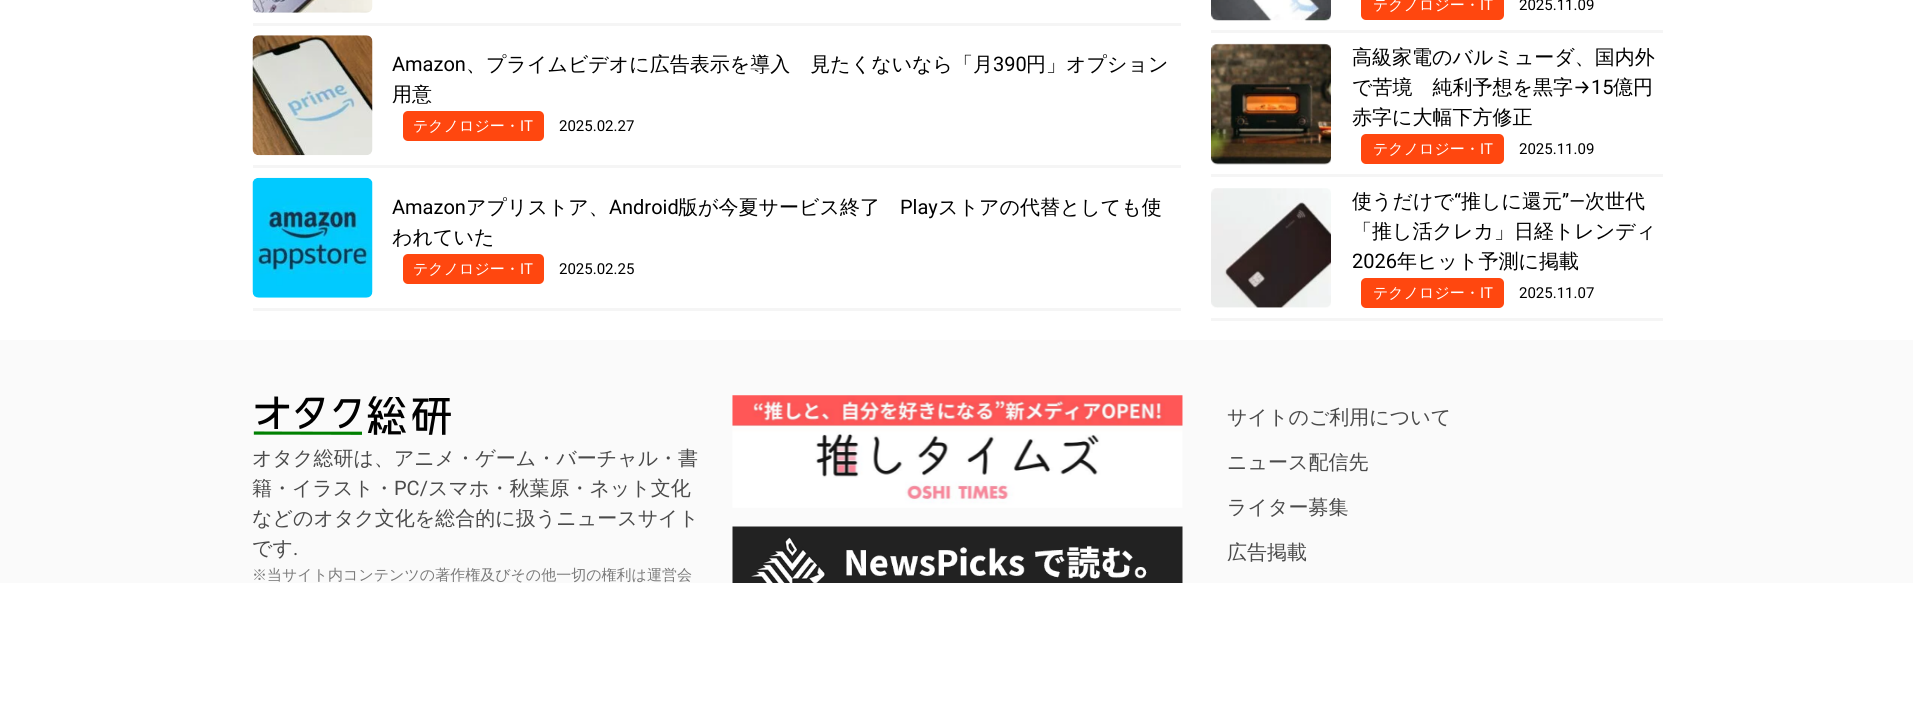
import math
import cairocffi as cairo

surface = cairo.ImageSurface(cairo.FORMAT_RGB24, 1913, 707)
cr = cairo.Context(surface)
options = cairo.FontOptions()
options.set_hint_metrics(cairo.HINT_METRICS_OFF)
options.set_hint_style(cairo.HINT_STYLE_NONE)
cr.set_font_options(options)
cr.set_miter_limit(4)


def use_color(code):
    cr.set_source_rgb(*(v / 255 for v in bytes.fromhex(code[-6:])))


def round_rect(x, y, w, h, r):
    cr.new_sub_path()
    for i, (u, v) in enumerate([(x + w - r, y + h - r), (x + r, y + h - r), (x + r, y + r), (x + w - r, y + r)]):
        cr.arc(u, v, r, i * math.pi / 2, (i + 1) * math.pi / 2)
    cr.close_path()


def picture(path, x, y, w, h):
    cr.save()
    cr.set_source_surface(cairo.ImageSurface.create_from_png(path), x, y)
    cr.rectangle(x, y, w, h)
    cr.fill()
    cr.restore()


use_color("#ffffff")
cr.paint()
picture("img1.png", 252, 0, 121, 13)
use_color("#f5f5f5")
cr.rectangle(253, 23, 928, 3)
cr.fill()
picture("img2.png", 252, 35, 121, 121)
cr.select_font_face("Roboto")
cr.set_font_size(20)
use_color("#000000")
cr.move_to(392, 71)
cr.show_text("Amazon")
cr.select_font_face("WenQuanYi Zen Hei Medium")
cr.move_to(466, 71)
cr.show_text("、プライムビデオに広告表示を導入　見たくないなら「月")
cr.select_font_face("Roboto")
cr.move_to(993, 71)
cr.show_text("390")
cr.select_font_face("WenQuanYi Zen Hei Medium")
cr.move_to(1026, 71)
cr.show_text("円」オプション")
cr.move_to(392, 101)
cr.show_text("用意")
use_color("#ff470f")
round_rect(403, 111, 141, 30, 5)
cr.fill()
cr.set_font_size(15)
use_color("#ffffff")
cr.move_to(413, 131)
cr.show_text("テクノロジー・")
cr.select_font_face("Roboto")
cr.move_to(520, 131)
cr.show_text("IT")
use_color("#000000")
cr.move_to(559, 131)
cr.show_text("2025.02.27")
use_color("#f5f5f5")
cr.rectangle(253, 165, 928, 3)
cr.fill()
picture("img3.png", 252, 177, 121, 121)
cr.set_font_size(20)
use_color("#000000")
cr.move_to(392, 214)
cr.show_text("Amazon")
cr.select_font_face("WenQuanYi Zen Hei Medium")
cr.move_to(466, 214)
cr.show_text("アプリストア、")
cr.select_font_face("Roboto")
cr.move_to(609, 214)
cr.show_text("Android")
cr.select_font_face("WenQuanYi Zen Hei Medium")
cr.move_to(678, 214)
cr.show_text("版が今夏サービス終了")
cr.select_font_face("Roboto")
cr.move_to(900, 214)
cr.show_text("Play")
cr.select_font_face("WenQuanYi Zen Hei Medium")
cr.move_to(938, 214)
cr.show_text("ストアの代替としても使")
cr.move_to(392, 244)
cr.show_text("われていた")
use_color("#ff470f")
round_rect(403, 254, 141, 30, 5)
cr.fill()
cr.set_font_size(15)
use_color("#ffffff")
cr.move_to(413, 274)
cr.show_text("テクノロジー・")
cr.select_font_face("Roboto")
cr.move_to(520, 274)
cr.show_text("IT")
use_color("#000000")
cr.move_to(559, 274)
cr.show_text("2025.02.25")
use_color("#f5f5f5")
cr.rectangle(253, 308, 928, 3)
cr.fill()
picture("img4.png", 1211, 0, 120, 21)
use_color("#ff470f")
round_rect(1361, -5, 143, 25, 5)
cr.fill()
cr.select_font_face("WenQuanYi Zen Hei Medium")
use_color("#ffffff")
cr.move_to(1373, 10)
cr.show_text("テクノロジー・")
cr.select_font_face("Roboto")
cr.move_to(1480, 10)
cr.show_text("IT")
use_color("#000000")
cr.move_to(1519, 10)
cr.show_text("2025.11.09")
use_color("#f5f5f5")
cr.rectangle(1211, 30, 452, 3)
cr.fill()
picture("img5.png", 1211, 43, 120, 122)
cr.select_font_face("WenQuanYi Zen Hei Medium")
cr.set_font_size(20)
use_color("#000000")
cr.move_to(1352, 64)
cr.show_text("高級家電のバルミューダ、国内外")
cr.move_to(1352, 94)
cr.show_text("で苦境　純利予想を黒字")
cr.select_font_face("Fira Sans")
cr.move_to(1573, 94)
cr.show_text("→")
cr.select_font_face("Roboto")
cr.move_to(1591, 94)
cr.show_text("15")
cr.select_font_face("WenQuanYi Zen Hei Medium")
cr.move_to(1613, 94)
cr.show_text("億円")
cr.move_to(1352, 124)
cr.show_text("赤字に大幅下方修正")
use_color("#ff470f")
round_rect(1361, 134, 143, 30, 5)
cr.fill()
cr.set_font_size(15)
use_color("#ffffff")
cr.move_to(1373, 154)
cr.show_text("テクノロジー・")
cr.select_font_face("Roboto")
cr.move_to(1480, 154)
cr.show_text("IT")
use_color("#000000")
cr.move_to(1519, 154)
cr.show_text("2025.11.09")
use_color("#f5f5f5")
cr.rectangle(1211, 174, 452, 3)
cr.fill()
picture("img6.png", 1211, 188, 120, 120)
cr.select_font_face("WenQuanYi Zen Hei Medium")
cr.set_font_size(20)
use_color("#000000")
cr.move_to(1352, 208)
cr.show_text("使うだけで")
cr.select_font_face("Roboto")
cr.move_to(1454, 208)
cr.show_text("“")
cr.select_font_face("WenQuanYi Zen Hei Medium")
cr.move_to(1461, 208)
cr.show_text("推しに還元")
cr.select_font_face("Roboto")
cr.move_to(1562, 208)
cr.show_text("”―")
cr.select_font_face("WenQuanYi Zen Hei Medium")
cr.move_to(1585, 208)
cr.show_text("次世代")
cr.move_to(1352, 238)
cr.show_text("「推し活クレカ」日経トレンディ")
cr.select_font_face("Roboto")
cr.move_to(1352, 268)
cr.show_text("2026")
cr.select_font_face("WenQuanYi Zen Hei Medium")
cr.move_to(1397, 268)
cr.show_text("年ヒット予測に掲載")
use_color("#ff470f")
round_rect(1361, 278, 143, 30, 5)
cr.fill()
cr.set_font_size(15)
use_color("#ffffff")
cr.move_to(1373, 298)
cr.show_text("テクノロジー・")
cr.select_font_face("Roboto")
cr.move_to(1480, 298)
cr.show_text("IT")
use_color("#000000")
cr.move_to(1519, 298)
cr.show_text("2025.11.07")
use_color("#f5f5f5")
cr.rectangle(1211, 318, 452, 3)
cr.fill()
use_color("#fafafa")
cr.rectangle(0, 340, 1913, 243)
cr.fill()
picture("img7.png", 253, 396, 198, 39)
cr.select_font_face("WenQuanYi Zen Hei Medium")
cr.set_font_size(20)
use_color("#4a4a4a")
cr.move_to(252, 465)
cr.show_text("オタク総研は、アニメ・ゲーム・バーチャル・書")
cr.move_to(252, 495)
cr.show_text("籍・イラスト・")
cr.select_font_face("Roboto")
cr.move_to(394, 495)
cr.show_text("PC/")
cr.select_font_face("WenQuanYi Zen Hei Medium")
cr.move_to(428, 495)
cr.show_text("スマホ・秋葉原・ネット文化")
cr.move_to(252, 525)
cr.show_text("などのオタク文化を総合的に扱うニュースサイト")
cr.move_to(252, 555)
cr.show_text("です")
cr.select_font_face("Roboto")
cr.move_to(293, 555)
cr.show_text(".")
cr.select_font_face("WenQuanYi Zen Hei Medium")
cr.set_font_size(15)
use_color("#7a7a7a")
cr.move_to(252, 580)
cr.show_text("※当サイト内コンテンツの著作権及びその他一切の権利は運営会")
picture("img8.png", 732, 395, 451, 113)
picture("img9.png", 732, 526, 451, 57)
cr.set_font_size(20)
use_color("#4a4a4a")
cr.move_to(1227, 424)
cr.show_text("サイトのご利用について")
cr.move_to(1227, 469)
cr.show_text("ニュース配信先")
cr.move_to(1227, 514)
cr.show_text("ライター募集")
cr.move_to(1227, 559)
cr.show_text("広告掲載")
surface.write_to_png("result.png")
